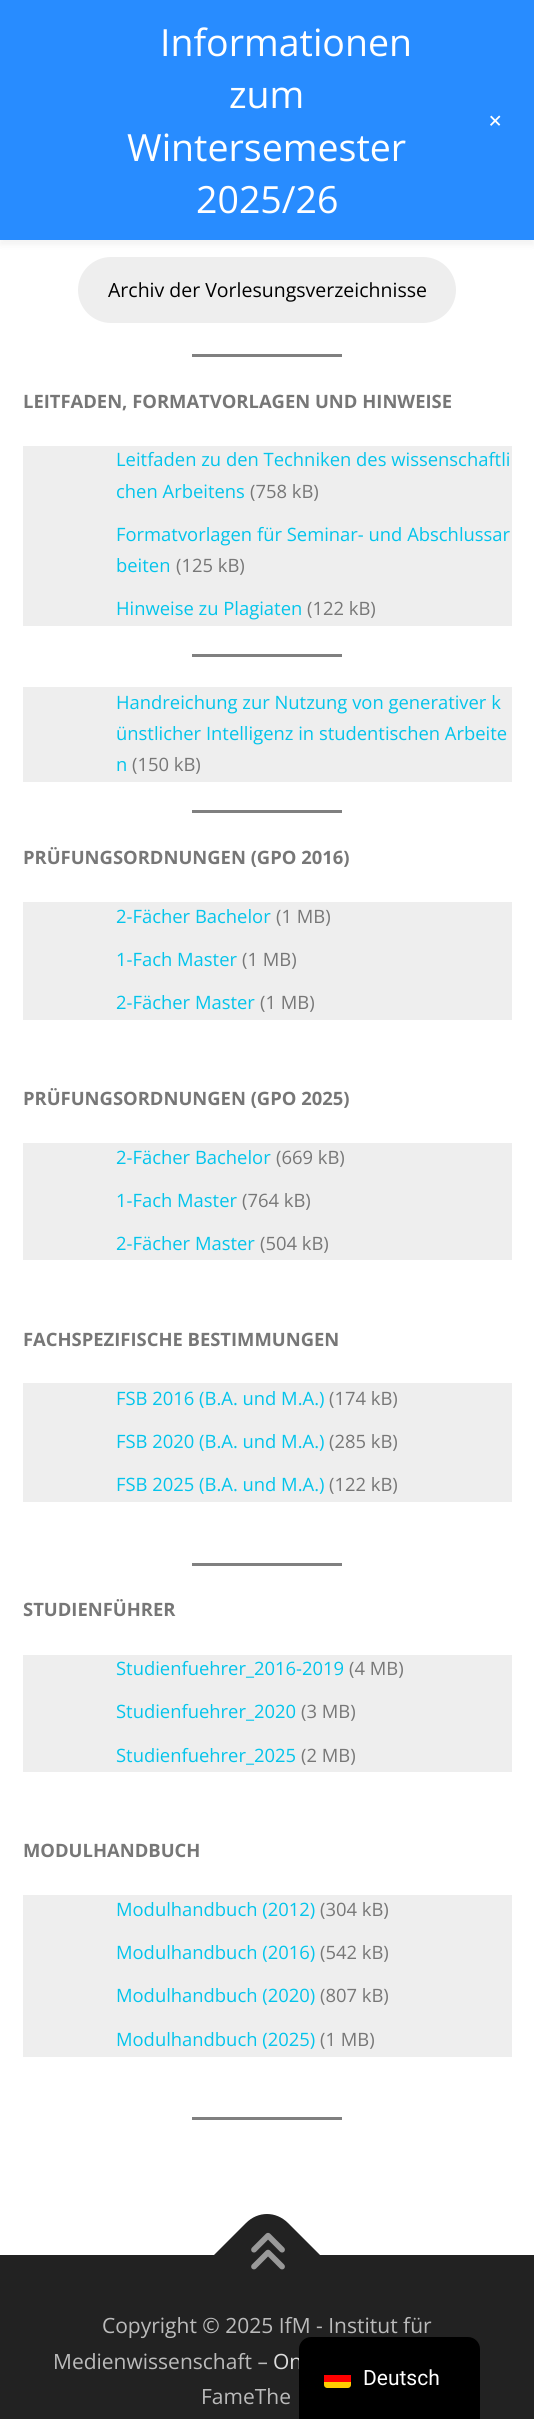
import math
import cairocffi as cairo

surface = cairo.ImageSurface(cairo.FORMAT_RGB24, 534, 2419)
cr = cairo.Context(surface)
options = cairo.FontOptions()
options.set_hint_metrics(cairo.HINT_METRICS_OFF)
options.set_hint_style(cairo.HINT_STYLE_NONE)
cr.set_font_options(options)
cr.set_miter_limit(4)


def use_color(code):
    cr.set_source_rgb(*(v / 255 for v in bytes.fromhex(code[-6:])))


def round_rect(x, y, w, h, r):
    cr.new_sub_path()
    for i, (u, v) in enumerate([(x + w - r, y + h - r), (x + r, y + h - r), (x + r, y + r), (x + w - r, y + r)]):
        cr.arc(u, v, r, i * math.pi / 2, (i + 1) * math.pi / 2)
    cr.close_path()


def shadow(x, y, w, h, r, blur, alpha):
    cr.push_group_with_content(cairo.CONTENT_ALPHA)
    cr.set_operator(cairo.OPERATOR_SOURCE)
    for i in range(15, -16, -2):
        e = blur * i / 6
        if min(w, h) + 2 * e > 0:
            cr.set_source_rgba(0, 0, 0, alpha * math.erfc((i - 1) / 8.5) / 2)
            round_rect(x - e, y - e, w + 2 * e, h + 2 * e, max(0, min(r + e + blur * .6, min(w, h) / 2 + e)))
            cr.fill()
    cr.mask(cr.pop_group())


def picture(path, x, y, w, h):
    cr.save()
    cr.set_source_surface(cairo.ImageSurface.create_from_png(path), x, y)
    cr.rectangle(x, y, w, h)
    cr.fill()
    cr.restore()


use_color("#ffffff")
cr.paint()
use_color("#000000")
shadow(0, 5, 534, 240, 0, 3, 0.05)
use_color("#288cff")
cr.rectangle(0, 0, 534, 240)
cr.fill()
cr.select_font_face("Open Sans")
cr.set_font_size(37.5)
use_color("#ffffff")
cr.move_to(160, 56)
cr.show_text("Informationen")
cr.move_to(229, 108)
cr.show_text("zum")
cr.move_to(127, 161)
cr.show_text("Wintersemester")
cr.move_to(196, 213)
cr.show_text("2025/26")
cr.set_font_size(27)
cr.save()
cr.translate(483, 122)
cr.rotate(45 * math.pi / 180)
cr.move_to(0, 0)
cr.show_text("+")
cr.restore()
use_color("#eeeeee")
round_rect(78, 257, 378, 66, 33)
cr.fill()
cr.set_font_size(19.5)
use_color("#000000")
cr.move_to(108, 297)
cr.show_text("Archiv der Vorlesungsverzeichnisse")
use_color("#808080")
cr.rectangle(192, 354, 150, 3)
cr.fill()
cr.select_font_face("Open Sans", cairo.FONT_SLANT_NORMAL, cairo.FONT_WEIGHT_BOLD)
cr.set_font_size(18.4)
use_color("#777777")
cr.move_to(23, 408)
cr.show_text("LEITFADEN, FORMATVORLAGEN UND HINWEISE")
use_color("#eeeeee")
cr.rectangle(23, 446, 489, 180)
cr.fill()
cr.select_font_face("Open Sans")
use_color("#03c4eb")
cr.move_to(116, 466)
cr.show_text("Leitfaden zu den Techniken des wissenschaftli")
cr.move_to(116, 498)
cr.show_text("chen Arbeitens")
use_color("#777777")
cr.move_to(250, 498)
cr.show_text("(758 kB)")
use_color("#03c4eb")
cr.move_to(116, 541)
cr.show_text("Formatvorlagen für Seminar- und Abschlussar")
cr.move_to(116, 572)
cr.show_text("beiten")
use_color("#777777")
cr.move_to(176, 572)
cr.show_text("(125 kB)")
use_color("#03c4eb")
cr.move_to(116, 615)
cr.show_text("Hinweise zu Plagiaten")
use_color("#777777")
cr.move_to(307, 615)
cr.show_text("(122 kB)")
use_color("#808080")
cr.rectangle(192, 654, 150, 3)
cr.fill()
use_color("#eeeeee")
cr.rectangle(23, 687, 489, 95)
cr.fill()
use_color("#03c4eb")
cr.move_to(116, 709)
cr.show_text("Handreichung zur Nutzung von generativer k")
cr.move_to(116, 740)
cr.show_text("ünstlicher Intelligenz in studentischen Arbeite")
cr.move_to(116, 771)
cr.show_text("n")
use_color("#777777")
cr.move_to(132, 771)
cr.show_text("(150 kB)")
use_color("#808080")
cr.rectangle(192, 810, 150, 3)
cr.fill()
cr.select_font_face("Open Sans", cairo.FONT_SLANT_NORMAL, cairo.FONT_WEIGHT_BOLD)
use_color("#777777")
cr.move_to(23, 864)
cr.show_text("PRÜFUNGSORDNUNGEN (GPO 2016)")
use_color("#eeeeee")
cr.rectangle(23, 902, 489, 118)
cr.fill()
cr.select_font_face("Open Sans")
use_color("#03c4eb")
cr.move_to(116, 923)
cr.show_text("2-Fächer Bachelor")
use_color("#777777")
cr.move_to(276, 923)
cr.show_text("(1 MB)")
use_color("#03c4eb")
cr.move_to(116, 966)
cr.show_text("1-Fach Master")
use_color("#777777")
cr.move_to(242, 966)
cr.show_text("(1 MB)")
use_color("#03c4eb")
cr.move_to(116, 1009)
cr.show_text("2-Fächer Master")
use_color("#777777")
cr.move_to(260, 1009)
cr.show_text("(1 MB)")
cr.select_font_face("Open Sans", cairo.FONT_SLANT_NORMAL, cairo.FONT_WEIGHT_BOLD)
cr.move_to(23, 1105)
cr.show_text("PRÜFUNGSORDNUNGEN (GPO 2025)")
use_color("#eeeeee")
cr.rectangle(23, 1143, 489, 117)
cr.fill()
cr.select_font_face("Open Sans")
use_color("#03c4eb")
cr.move_to(116, 1164)
cr.show_text("2-Fächer Bachelor")
use_color("#777777")
cr.move_to(276, 1164)
cr.show_text("(669 kB)")
use_color("#03c4eb")
cr.move_to(116, 1207)
cr.show_text("1-Fach Master")
use_color("#777777")
cr.move_to(242, 1207)
cr.show_text("(764 kB)")
use_color("#03c4eb")
cr.move_to(116, 1250)
cr.show_text("2-Fächer Master")
use_color("#777777")
cr.move_to(260, 1250)
cr.show_text("(504 kB)")
cr.select_font_face("Open Sans", cairo.FONT_SLANT_NORMAL, cairo.FONT_WEIGHT_BOLD)
cr.move_to(23, 1346)
cr.show_text("FACHSPEZIFISCHE BESTIMMUNGEN")
use_color("#eeeeee")
cr.rectangle(23, 1383, 489, 119)
cr.fill()
cr.select_font_face("Open Sans")
use_color("#03c4eb")
cr.move_to(116, 1405)
cr.show_text("FSB 2016 (B.A. und M.A.)")
use_color("#777777")
cr.move_to(329, 1405)
cr.show_text("(174 kB)")
use_color("#03c4eb")
cr.move_to(116, 1448)
cr.show_text("FSB 2020 (B.A. und M.A.)")
use_color("#777777")
cr.move_to(329, 1448)
cr.show_text("(285 kB)")
use_color("#03c4eb")
cr.move_to(116, 1491)
cr.show_text("FSB 2025 (B.A. und M.A.)")
use_color("#777777")
cr.move_to(329, 1491)
cr.show_text("(122 kB)")
use_color("#808080")
cr.rectangle(192, 1563, 150, 3)
cr.fill()
cr.select_font_face("Open Sans", cairo.FONT_SLANT_NORMAL, cairo.FONT_WEIGHT_BOLD)
use_color("#777777")
cr.move_to(23, 1616)
cr.show_text("STUDIENFÜHRER")
use_color("#eeeeee")
cr.rectangle(23, 1655, 489, 117)
cr.fill()
cr.select_font_face("Open Sans")
use_color("#03c4eb")
cr.move_to(116, 1675)
cr.show_text("Studienfuehrer_2016-2019")
use_color("#777777")
cr.move_to(349, 1675)
cr.show_text("(4 MB)")
use_color("#03c4eb")
cr.move_to(116, 1718)
cr.show_text("Studienfuehrer_2020")
use_color("#777777")
cr.move_to(301, 1718)
cr.show_text("(3 MB)")
use_color("#03c4eb")
cr.move_to(116, 1762)
cr.show_text("Studienfuehrer_2025")
use_color("#777777")
cr.move_to(301, 1762)
cr.show_text("(2 MB)")
cr.select_font_face("Open Sans", cairo.FONT_SLANT_NORMAL, cairo.FONT_WEIGHT_BOLD)
cr.move_to(23, 1857)
cr.show_text("MODULHANDBUCH")
use_color("#eeeeee")
cr.rectangle(23, 1895, 489, 162)
cr.fill()
cr.select_font_face("Open Sans")
use_color("#03c4eb")
cr.move_to(116, 1916)
cr.show_text("Modulhandbuch (2012)")
use_color("#777777")
cr.move_to(320, 1916)
cr.show_text("(304 kB)")
use_color("#03c4eb")
cr.move_to(116, 1959)
cr.show_text("Modulhandbuch (2016)")
use_color("#777777")
cr.move_to(320, 1959)
cr.show_text("(542 kB)")
use_color("#03c4eb")
cr.move_to(116, 2002)
cr.show_text("Modulhandbuch (2020)")
use_color("#777777")
cr.move_to(320, 2002)
cr.show_text("(807 kB)")
use_color("#03c4eb")
cr.move_to(116, 2046)
cr.show_text("Modulhandbuch (2025)")
use_color("#777777")
cr.move_to(320, 2046)
cr.show_text("(1 MB)")
use_color("#808080")
cr.rectangle(192, 2117, 150, 3)
cr.fill()
use_color("#222222")
cr.rectangle(0, 2255, 534, 164)
cr.fill()
cr.new_path()
cr.move_to(214, 2255)
cr.line_to(246, 2223)
cr.curve_to(258, 2211, 276, 2211, 288, 2223)
cr.line_to(320, 2255)
cr.line_to(267, 2308)
cr.close_path()
cr.fill()
picture("img1.png", 251, 2232, 34, 38)
cr.set_font_size(21)
use_color("#bbbbbb")
cr.move_to(102, 2333)
cr.show_text("Copyright © 2025 IfM - Institut für")
cr.move_to(53, 2369)
cr.show_text("Medienwissenschaft –")
use_color("#dddddd")
cr.move_to(273, 2369)
cr.show_text("On")
use_color("#bbbbbb")
cr.move_to(201, 2404)
cr.show_text("FameThe")
use_color("#000000")
cr.new_path()
cr.move_to(311, 2337)
cr.line_to(468, 2337)
cr.curve_to(474.5, 2337, 480, 2342.5, 480, 2349)
cr.line_to(480, 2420)
cr.line_to(299, 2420)
cr.line_to(299, 2349)
cr.curve_to(299, 2342.5, 304.5, 2337, 311, 2337)
cr.close_path()
cr.fill()
use_color("#ffcc00")
cr.new_path()
cr.move_to(324, 2382)
cr.line_to(351, 2382)
cr.line_to(351, 2385)
cr.curve_to(351, 2386.5, 349.5, 2388, 348, 2388)
cr.line_to(327, 2388)
cr.curve_to(325.5, 2388, 324, 2386.5, 324, 2385)
cr.close_path()
cr.fill()
use_color("#ff0000")
cr.rectangle(324, 2375, 27, 7)
cr.fill()
cr.select_font_face("Roboto")
use_color("#ffffff")
cr.move_to(363, 2385)
cr.show_text("Deutsch")
surface.write_to_png("result.png")
